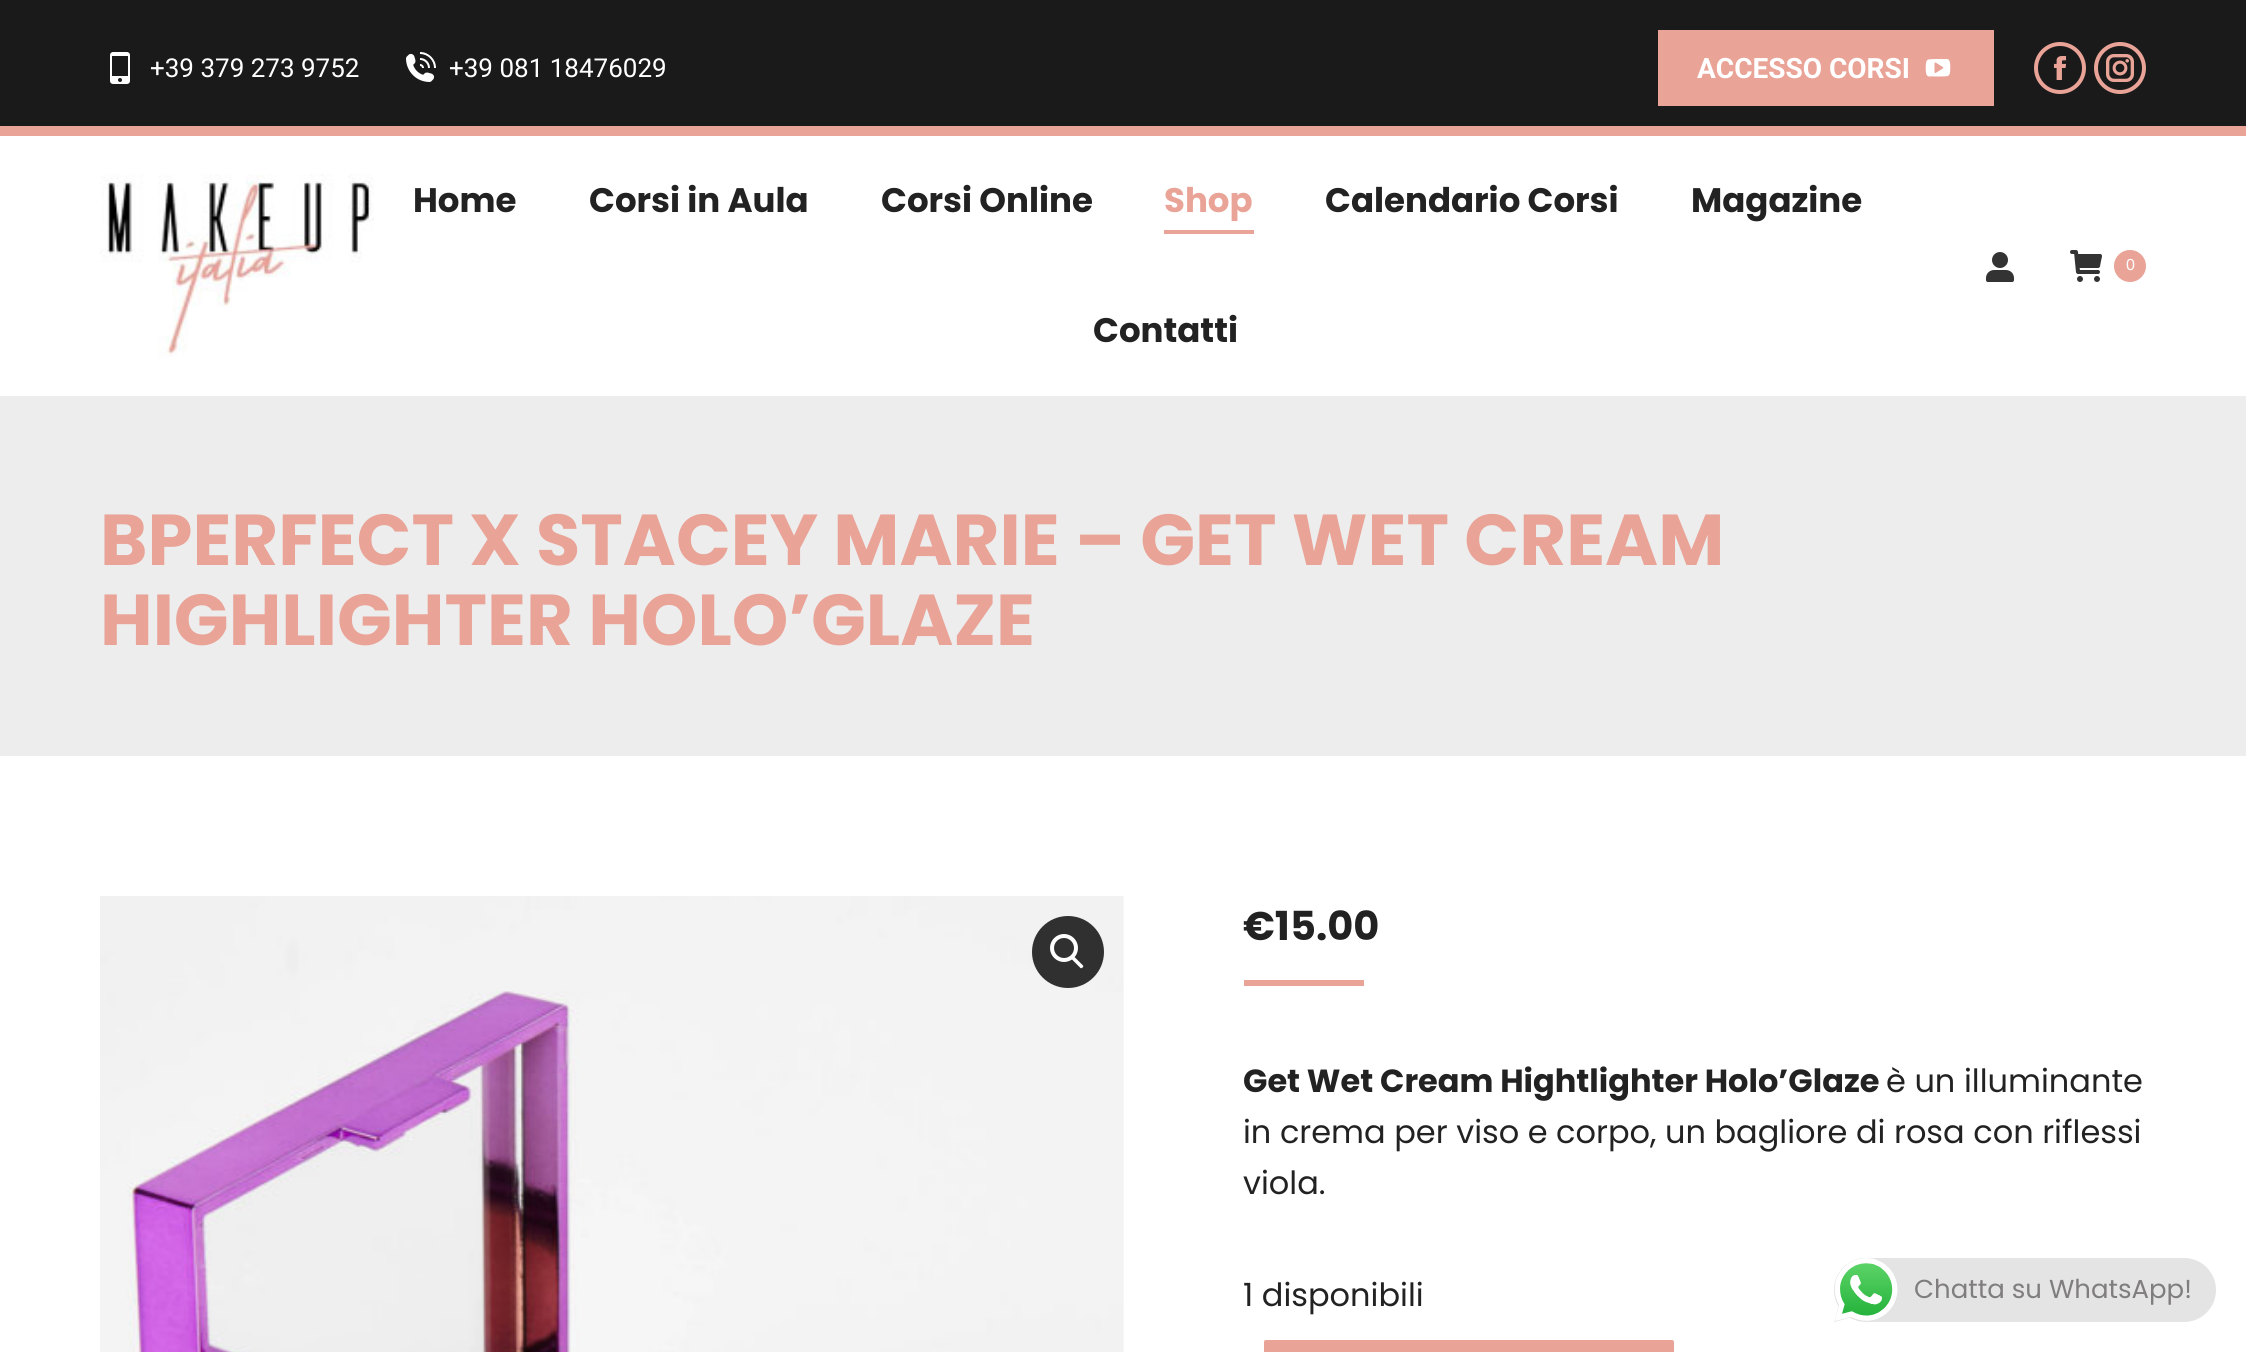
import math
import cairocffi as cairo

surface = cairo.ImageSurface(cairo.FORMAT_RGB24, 2246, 1352)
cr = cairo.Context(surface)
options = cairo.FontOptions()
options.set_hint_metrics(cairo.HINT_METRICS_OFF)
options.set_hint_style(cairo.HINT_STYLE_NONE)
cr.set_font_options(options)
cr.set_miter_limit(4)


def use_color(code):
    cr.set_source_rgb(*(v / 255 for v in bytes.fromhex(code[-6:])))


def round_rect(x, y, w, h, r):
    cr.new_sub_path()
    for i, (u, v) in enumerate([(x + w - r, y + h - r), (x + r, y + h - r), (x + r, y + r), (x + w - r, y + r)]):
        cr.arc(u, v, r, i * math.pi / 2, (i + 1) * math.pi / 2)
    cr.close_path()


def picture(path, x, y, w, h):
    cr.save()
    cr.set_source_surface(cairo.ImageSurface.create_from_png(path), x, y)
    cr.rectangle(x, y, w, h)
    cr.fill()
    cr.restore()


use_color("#ffffff")
cr.paint()
use_color("#1a1a1a")
cr.rectangle(0, 0, 2246, 126)
cr.fill()
picture("img1.png", 110, 52, 20, 32)
cr.select_font_face("Roboto")
cr.set_font_size(26)
use_color("#ffffff")
cr.move_to(150, 77)
cr.show_text("+39 379 273 9752")
picture("img2.png", 406, 52, 30, 30)
cr.move_to(449, 77)
cr.show_text("+39 081 18476029")
use_color("#e9a397")
cr.rectangle(1658, 30, 336, 76)
cr.fill()
cr.select_font_face("Roboto", cairo.FONT_SLANT_NORMAL, cairo.FONT_WEIGHT_BOLD)
cr.set_font_size(28)
use_color("#ffffff")
cr.move_to(1697, 78)
cr.show_text("ACCESSO CORSI")
picture("img3.png", 1925, 59, 26, 18)
cr.arc(2060, 68, 24, 0, 2 * math.pi)
use_color("#e9a397")
cr.set_line_width(4)
cr.stroke()
picture("img4.png", 2053, 56, 14, 24)
cr.arc(2120, 68, 24, 0, 2 * math.pi)
cr.stroke()
picture("img5.png", 2106, 54, 28, 28)
cr.rectangle(0, 126, 2246, 10)
cr.fill()
picture("img6.png", 100, 174, 274, 184)
cr.select_font_face("Poppins", cairo.FONT_SLANT_NORMAL, cairo.FONT_WEIGHT_BOLD)
cr.set_font_size(34)
use_color("#222222")
cr.move_to(413, 212)
cr.show_text("Home")
cr.move_to(589, 212)
cr.show_text("Corsi in Aula")
cr.move_to(881, 212)
cr.show_text("Corsi Online")
use_color("#e9a397")
cr.move_to(1164, 212)
cr.show_text("Shop")
cr.rectangle(1164, 230, 90, 4)
cr.fill()
use_color("#222222")
cr.move_to(1325, 212)
cr.show_text("Calendario Corsi")
cr.move_to(1691, 212)
cr.show_text("Magazine")
cr.move_to(1093, 342)
cr.show_text("Contatti")
picture("img7.png", 1986, 252, 28, 30)
picture("img8.png", 2070, 250, 32, 32)
use_color("#e9a397")
cr.arc(2130, 266, 16, 0, 2 * math.pi)
cr.fill()
cr.select_font_face("Liberation Sans")
cr.set_font_size(16)
use_color("#ffffff")
cr.move_to(2126, 270)
cr.show_text("0")
use_color("#ededed")
cr.rectangle(0, 396, 2246, 360)
cr.fill()
cr.select_font_face("Poppins", cairo.FONT_SLANT_NORMAL, cairo.FONT_WEIGHT_BOLD)
cr.set_font_size(72)
use_color("#e9a397")
cr.move_to(100, 565)
cr.show_text("BPERFECT X STACEY MARIE – GET WET CREAM")
cr.move_to(100, 645)
cr.show_text("HIGHLIGHTER HOLO’GLAZE")
picture("img9.png", 100, 896, 1024, 456)
use_color("#303030")
cr.arc(1068, 952, 36, 0, 2 * math.pi)
cr.fill()
cr.arc(1064, 948, 12, 0, 2 * math.pi)
use_color("#ffffff")
cr.stroke()
cr.new_path()
cr.move_to(1071.5, 956.5)
cr.curve_to(1072, 955.5, 1073.5, 955.5, 1074, 956.5)
cr.line_to(1082.5, 965)
cr.curve_to(1083.5, 965.5, 1083.5, 967, 1082.5, 967.5)
cr.curve_to(1082, 968.5, 1080.5, 968.5, 1080, 967.5)
cr.line_to(1071.5, 959)
cr.curve_to(1070.5, 958.5, 1070.5, 957, 1071.5, 956.5)
cr.close_path()
cr.fill()
cr.set_font_size(40)
use_color("#222222")
cr.move_to(1243, 940)
cr.show_text("€15.00")
use_color("#e9a397")
cr.rectangle(1244, 980, 120, 6)
cr.fill()
cr.set_font_size(32)
use_color("#222222")
cr.move_to(1243, 1092)
cr.show_text("Get Wet Cream Hightlighter Holo’Glaze")
cr.select_font_face("Poppins")
cr.move_to(1886, 1092)
cr.show_text("è un illuminante")
cr.move_to(1243, 1143)
cr.show_text("in crema per viso e corpo, un bagliore di rosa con riflessi")
cr.move_to(1243, 1194)
cr.show_text("viola.")
cr.move_to(1243, 1306)
cr.show_text("1 disponibili")
use_color("#e9a397")
round_rect(1264, 1340, 410, 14, 2)
cr.fill()
use_color("#e4e4e4")
round_rect(1834, 1258, 382, 64, 32)
cr.fill()
picture("img10.png", 1834, 1258, 64, 64)
cr.set_font_size(26)
use_color("#7f7d7d")
cr.move_to(1914, 1298)
cr.show_text("Chatta su WhatsApp!")
surface.write_to_png("result.png")
